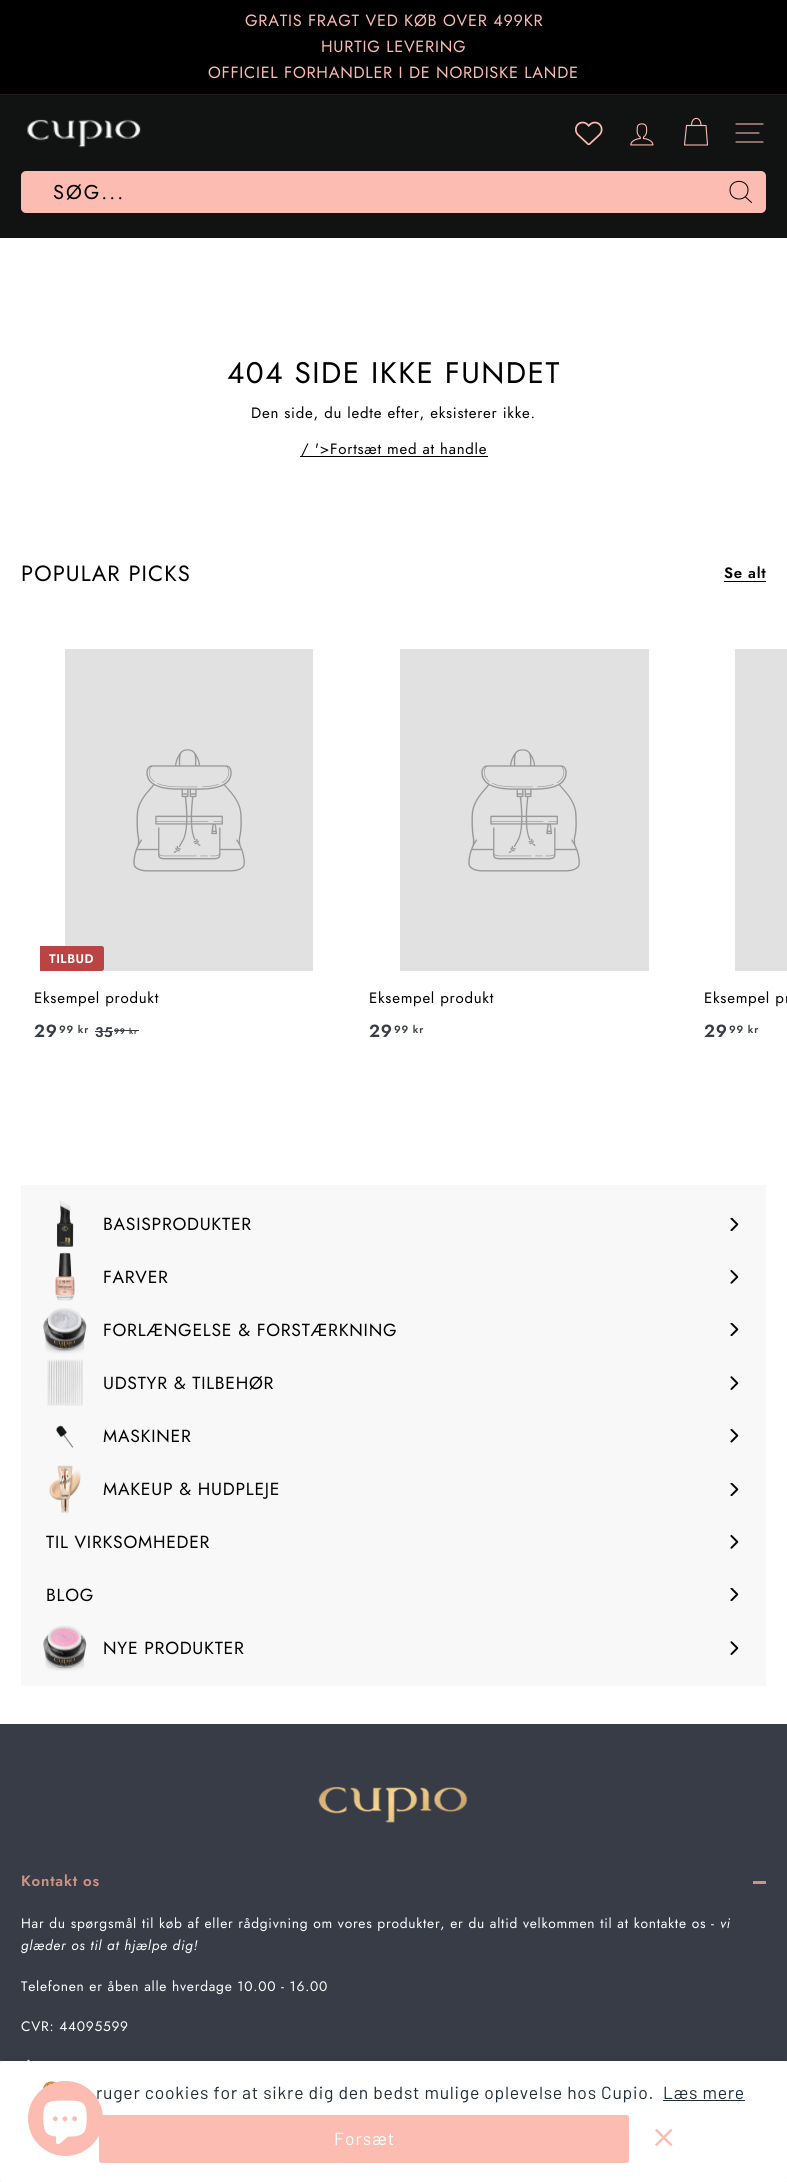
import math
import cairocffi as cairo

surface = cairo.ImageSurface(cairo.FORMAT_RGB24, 787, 2182)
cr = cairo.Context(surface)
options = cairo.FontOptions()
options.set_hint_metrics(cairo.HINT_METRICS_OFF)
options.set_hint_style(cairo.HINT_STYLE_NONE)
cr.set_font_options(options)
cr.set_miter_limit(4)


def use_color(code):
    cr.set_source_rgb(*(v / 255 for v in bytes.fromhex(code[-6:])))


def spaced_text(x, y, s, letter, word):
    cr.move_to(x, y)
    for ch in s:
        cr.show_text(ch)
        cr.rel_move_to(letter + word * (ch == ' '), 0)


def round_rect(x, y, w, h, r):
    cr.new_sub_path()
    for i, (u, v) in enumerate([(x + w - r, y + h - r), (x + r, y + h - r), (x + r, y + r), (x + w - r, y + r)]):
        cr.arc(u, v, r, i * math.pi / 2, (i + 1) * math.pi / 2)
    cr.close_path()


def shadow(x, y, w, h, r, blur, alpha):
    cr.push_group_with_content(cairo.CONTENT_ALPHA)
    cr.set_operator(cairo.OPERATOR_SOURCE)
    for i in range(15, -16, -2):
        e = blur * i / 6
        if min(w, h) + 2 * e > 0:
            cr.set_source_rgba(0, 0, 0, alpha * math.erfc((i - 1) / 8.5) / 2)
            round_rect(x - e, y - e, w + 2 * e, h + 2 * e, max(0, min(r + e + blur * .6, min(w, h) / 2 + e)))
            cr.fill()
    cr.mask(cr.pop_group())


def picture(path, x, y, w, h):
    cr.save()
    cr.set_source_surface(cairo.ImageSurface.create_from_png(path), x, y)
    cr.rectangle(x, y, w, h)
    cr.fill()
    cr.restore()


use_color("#ffffff")
cr.paint()
use_color("#000000")
cr.rectangle(0, 0, 787, 94)
cr.fill()
cr.select_font_face("Jost")
cr.set_font_size(16.25)
use_color("#fcbcb2")
spaced_text(245, 26, "GRATIS FRAGT VED KØB OVER 499KR", 0.75, 0)
spaced_text(321, 52, "HURTIG LEVERING", 0.75, 0)
spaced_text(208, 78, "OFFICIEL FORHANDLER I DE NORDISKE LANDE", 0.75, 0)
use_color("#261c1b")
cr.rectangle(0, 94, 787, 1)
cr.fill()
use_color("#111212")
cr.rectangle(0, 95, 787, 76)
cr.fill()
picture("img1.png", 27, 119, 114, 29)
picture("img2.png", 575, 121, 28, 25)
picture("img3.png", 630, 123, 24, 23)
cr.new_path()
cr.move_to(691.5, 125.5)
cr.curve_to(691.5, 116, 701, 116, 701, 125.5)
cr.move_to(686.5, 125.5)
cr.line_to(706, 125.5)
cr.line_to(707.5, 145)
cr.line_to(684.5, 145)
cr.close_path()
use_color("#fcbcb2")
cr.set_line_width(1.1)
cr.set_line_cap(cairo.LINE_CAP_ROUND)
cr.set_line_join(cairo.LINE_JOIN_ROUND)
cr.stroke()
cr.new_path()
cr.move_to(736, 124)
cr.line_to(763, 124)
cr.move_to(736, 133)
cr.line_to(759, 133)
cr.move_to(736, 142)
cr.line_to(763, 142)
cr.stroke()
use_color("#111212")
cr.new_path()
cr.move_to(0, 171)
cr.line_to(0, 238)
cr.line_to(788, 238)
cr.line_to(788, 1031)
cr.line_to(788, 171)
cr.close_path()
cr.fill()
use_color("#fcbcb2")
round_rect(21, 171, 745, 42, 5)
cr.fill()
cr.set_font_size(20)
use_color("#000000")
spaced_text(53, 199, "SØG...", 2, 0)
cr.new_path()
cr.move_to(748, 190)
cr.curve_to(748, 202, 730, 202, 730, 190)
cr.curve_to(730, 178.5, 748, 178.5, 748, 190)
cr.close_path()
cr.move_to(751.5, 202.5)
cr.line_to(745.5, 197)
cr.set_line_width(1)
cr.stroke()
cr.set_font_size(29.75)
spaced_text(227, 383, "404 SIDE IKKE FUNDET", 1.5, 0)
cr.set_font_size(15)
spaced_text(251, 418, "Den side, du ledte efter, eksisterer ikke.", 0.75, 0)
cr.rectangle(300, 456, 188, 1)
cr.fill()
spaced_text(301, 454, "/ '>Fortsæt med at handle", 0.75, 0)
cr.set_font_size(22)
spaced_text(21, 581, "POPULAR PICKS", 1.1, 0)
cr.select_font_face("Jost SemiBold")
cr.set_font_size(15)
spaced_text(724, 578, "Se alt", 0.75, 0)
cr.rectangle(724, 581, 42, 1)
cr.fill()
use_color("#e1e1e1")
cr.rectangle(65, 649, 248, 322)
cr.fill()
picture("img4.png", 133, 749, 112, 123)
use_color("#ba4444")
cr.new_path()
cr.move_to(40, 946)
cr.line_to(101.5, 946)
cr.curve_to(103, 946, 104, 947, 104, 948.5)
cr.line_to(104, 968.5)
cr.curve_to(104, 970, 103, 971, 101.5, 971)
cr.line_to(40, 971)
cr.close_path()
cr.fill()
cr.set_font_size(12.5)
use_color("#ffffff")
spaced_text(49, 963, "TILBUD", 0.5, 0)
cr.select_font_face("Jost")
cr.set_font_size(15)
use_color("#000000")
spaced_text(34, 1003, "Eksempel produkt", 0.75, 0)
cr.select_font_face("Jost SemiBold")
cr.set_font_size(17.5)
use_color("#373c47")
spaced_text(34, 1037, "29", 0.75, 0)
cr.set_font_size(10.5)
spaced_text(59, 1033, "99 kr", 0.75, 0)
cr.set_font_size(14)
spaced_text(95, 1037, "35", 0.75, 0)
cr.rectangle(95, 1031, 18, 1)
cr.fill()
cr.set_font_size(8)
spaced_text(114, 1034, "99 kr", 0.75, 0)
cr.rectangle(114, 1030, 25, 1)
cr.fill()
use_color("#e1e1e1")
cr.rectangle(400, 649, 249, 322)
cr.fill()
picture("img4.png", 468, 749, 112, 123)
cr.select_font_face("Jost")
cr.set_font_size(15)
use_color("#000000")
spaced_text(369, 1003, "Eksempel produkt", 0.75, 0)
cr.select_font_face("Jost SemiBold")
cr.set_font_size(17.5)
use_color("#373c47")
spaced_text(369, 1037, "29", 0.75, 0)
cr.set_font_size(10.5)
spaced_text(394, 1033, "99 kr", 0.75, 0)
use_color("#e1e1e1")
cr.rectangle(735, 649, 52, 322)
cr.fill()
cr.select_font_face("Jost")
cr.set_font_size(15)
use_color("#000000")
spaced_text(704, 1003, "Eksempel pr", 0.75, 0)
cr.select_font_face("Jost SemiBold")
cr.set_font_size(17.5)
use_color("#373c47")
spaced_text(704, 1037, "29", 0.75, 0)
cr.set_font_size(10.5)
spaced_text(729, 1033, "99 kr", 0.75, 0)
picture("img5.png", 56, 1200, 18, 47)
picture("img6.png", 730, 1218, 9, 13)
picture("img7.png", 55, 1252, 20, 49)
picture("img8.png", 730, 1270, 9, 14)
picture("img9.png", 43, 1308, 44, 46)
picture("img6.png", 730, 1323, 9, 13)
picture("img10.png", 47, 1359, 36, 47)
picture("img11.png", 730, 1376, 9, 14)
picture("img12.png", 56, 1425, 18, 24)
picture("img13.png", 730, 1429, 9, 14)
picture("img14.png", 49, 1465, 32, 48)
picture("img6.png", 730, 1483, 9, 13)
picture("img8.png", 730, 1535, 9, 14)
picture("img6.png", 730, 1588, 9, 13)
picture("img15.png", 43, 1625, 44, 46)
picture("img11.png", 730, 1641, 9, 14)
cr.set_source_rgba(0, 0, 0, 0.03)
cr.rectangle(21, 1185, 745, 501)
cr.fill()
cr.select_font_face("Jost")
cr.set_font_size(17.5)
use_color("#000000")
spaced_text(103, 1230, "BASISPRODUKTER", 0.75, 0)
spaced_text(103, 1283, "FARVER", 0.75, 0)
spaced_text(103, 1336, "FORLÆNGELSE & FORSTÆRKNING", 0.75, 0)
spaced_text(103, 1389, "UDSTYR & TILBEHØR", 0.75, 0)
spaced_text(103, 1442, "MASKINER", 0.75, 0)
spaced_text(103, 1495, "MAKEUP & HUDPLEJE", 0.75, 0)
spaced_text(46, 1548, "TIL VIRKSOMHEDER", 0.75, 0)
spaced_text(46, 1601, "BLOG", 0.75, 0)
spaced_text(103, 1654, "NYE PRODUKTER", 0.75, 0)
use_color("#373c47")
cr.rectangle(0, 1724, 787, 337)
cr.fill()
picture("img16.png", 318, 1786, 150, 37)
cr.select_font_face("Jost SemiBold")
cr.set_font_size(15)
use_color("#d09283")
spaced_text(21, 1886, "Kontakt os", 0.75, 0)
cr.rectangle(753, 1881, 13, 3)
cr.fill()
cr.select_font_face("Jost")
cr.set_font_size(13.75)
use_color("#ffffff")
spaced_text(21, 1928, "Har du spørgsmål til køb af eller rådgivning om vores produkter, er du altid velkommen til at kontakte os -", 0.75, 0)
cr.select_font_face("Jost", cairo.FONT_SLANT_ITALIC)
spaced_text(720, 1928, "vi", 0.75, 0)
spaced_text(21, 1950, "glæder os til at hjælpe dig!", 0.75, 0)
cr.select_font_face("Jost")
spaced_text(21, 1991, "Telefonen er åben alle hverdage 10.00 - 16.00", 0.75, 0)
spaced_text(21, 2031, "CVR: 44095599", 0.75, 0)
picture("img17.png", 27, 2059, 3, 2)
cr.save()
cr.set_fill_rule(cairo.FILL_RULE_EVEN_ODD)
cr.new_path()
cr.move_to(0, 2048)
cr.line_to(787, 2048)
cr.line_to(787, 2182)
cr.line_to(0, 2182)
cr.close_path()
cr.move_to(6, 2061)
cr.line_to(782, 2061)
cr.curve_to(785.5, 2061, 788, 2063.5, 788, 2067)
cr.line_to(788, 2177)
cr.curve_to(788, 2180.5, 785.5, 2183, 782, 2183)
cr.line_to(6, 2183)
cr.curve_to(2.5, 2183, 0, 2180.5, 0, 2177)
cr.line_to(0, 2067)
cr.curve_to(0, 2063.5, 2.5, 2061, 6, 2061)
cr.close_path()
cr.clip()
use_color("#000000")
shadow(0, 2061, 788, 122, 6, 4, 0.12)
cr.restore()
picture("img19.png", 43, 2081, 14, 8)
cr.select_font_face("Barlow")
cr.set_font_size(17.5)
use_color("#212b36")
spaced_text(96, 2099, "ruger cookies for at sikre dig den bedst mulige oplevelse hos Cupio.", 0.75, 0)
use_color("#fcbcb2")
round_rect(99, 2115, 530, 48, 2.5)
cr.fill()
cr.arc(65.5, 2118.5, 37.5, 0, 2 * math.pi)
cr.fill()
picture("img18.png", 43, 2100, 44, 45)
use_color("#212b36")
spaced_text(663, 2099, "Læs mere", 0.75, 0)
cr.rectangle(663, 2100, 82, 1)
cr.fill()
use_color("#ffffff")
spaced_text(334, 2145, "Forsæt", 1, 0)
picture("img20.png", 655, 2128, 18, 19)
surface.write_to_png("result.png")
